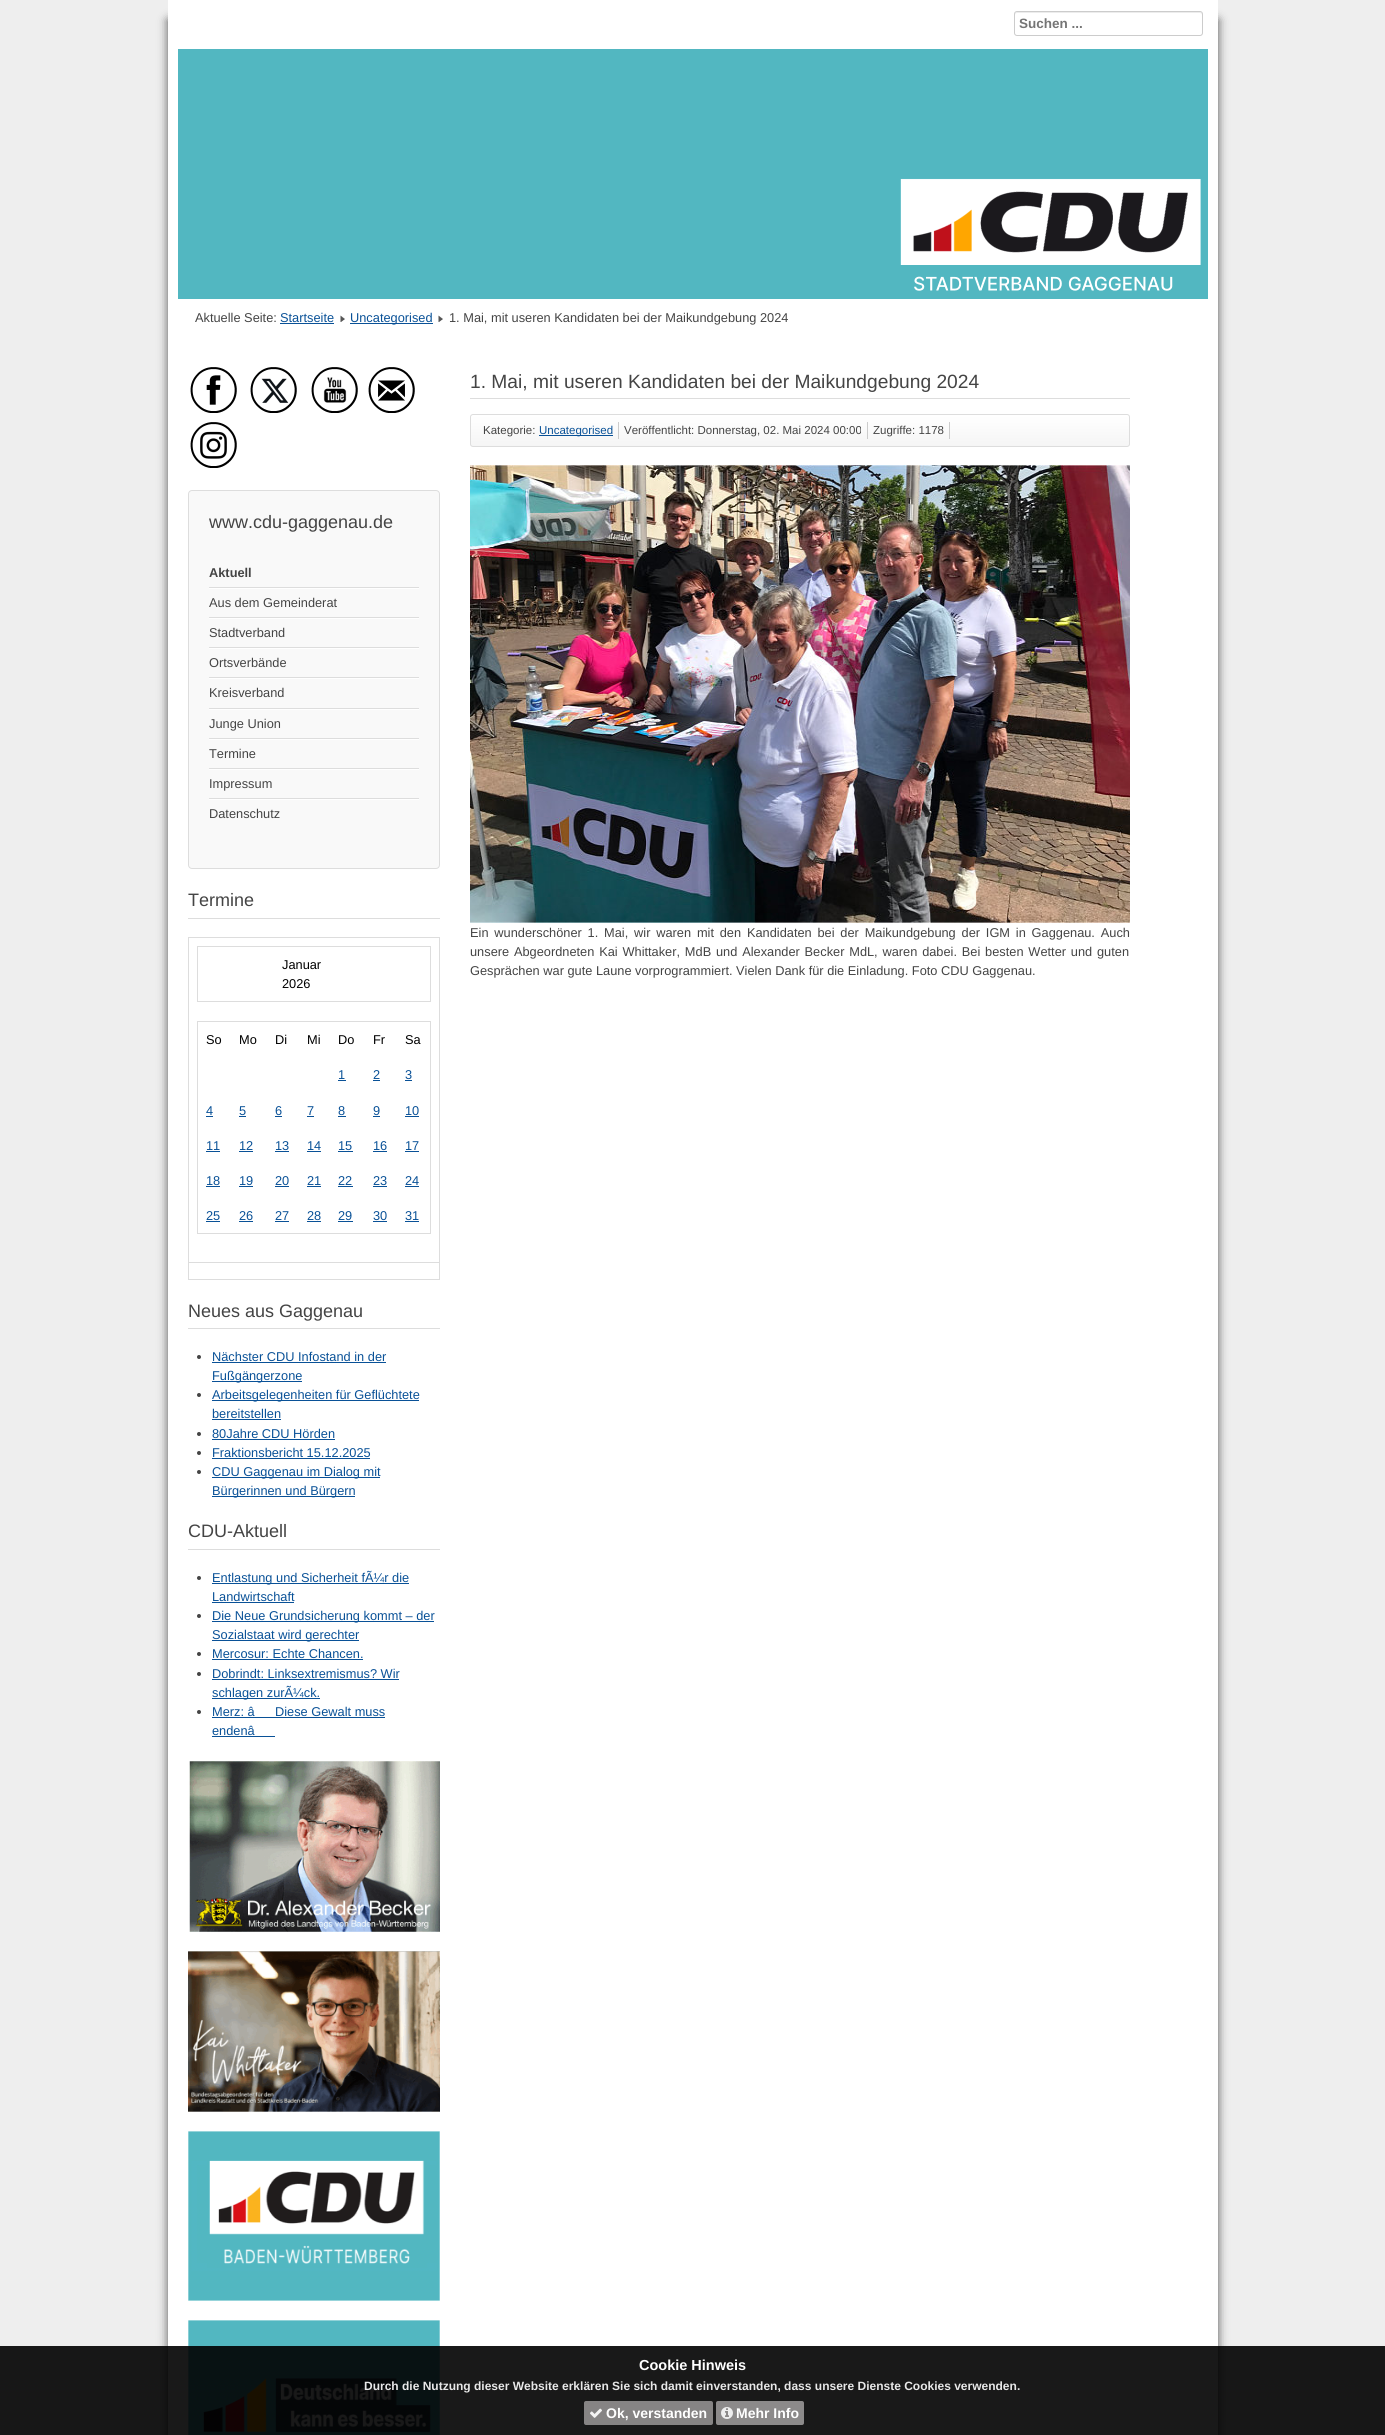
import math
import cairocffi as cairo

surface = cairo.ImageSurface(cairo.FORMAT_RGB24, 1385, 2435)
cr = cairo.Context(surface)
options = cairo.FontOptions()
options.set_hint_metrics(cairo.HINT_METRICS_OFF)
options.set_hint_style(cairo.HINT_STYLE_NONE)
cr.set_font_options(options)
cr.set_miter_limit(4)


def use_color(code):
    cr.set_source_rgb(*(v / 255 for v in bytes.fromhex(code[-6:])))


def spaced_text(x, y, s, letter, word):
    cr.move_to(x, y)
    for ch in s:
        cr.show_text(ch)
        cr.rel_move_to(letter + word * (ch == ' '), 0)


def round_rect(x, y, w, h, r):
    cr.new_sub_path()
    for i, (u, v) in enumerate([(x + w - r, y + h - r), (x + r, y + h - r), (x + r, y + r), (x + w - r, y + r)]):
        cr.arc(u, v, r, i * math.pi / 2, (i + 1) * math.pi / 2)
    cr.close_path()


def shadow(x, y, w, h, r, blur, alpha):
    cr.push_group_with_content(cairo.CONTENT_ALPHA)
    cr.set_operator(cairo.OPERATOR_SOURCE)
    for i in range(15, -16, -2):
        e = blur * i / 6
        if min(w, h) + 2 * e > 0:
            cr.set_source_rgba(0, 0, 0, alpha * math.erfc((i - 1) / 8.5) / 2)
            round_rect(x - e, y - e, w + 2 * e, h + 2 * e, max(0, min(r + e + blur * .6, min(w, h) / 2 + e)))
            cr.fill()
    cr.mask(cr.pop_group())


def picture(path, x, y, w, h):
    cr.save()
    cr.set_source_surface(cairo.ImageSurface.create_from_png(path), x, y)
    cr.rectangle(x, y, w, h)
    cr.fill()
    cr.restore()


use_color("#eeeeee")
cr.paint()
use_color("#555555")
shadow(168, 20, 1050, 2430, 0, 5, 1)
use_color("#ffffff")
cr.rectangle(168, 0, 1050, 2435)
cr.fill()
use_color("#ececec")
cr.new_path()
cr.move_to(1017, 13)
cr.line_to(1200, 13)
cr.curve_to(1201, 13, 1202, 14, 1202, 15)
cr.line_to(1202, 14)
cr.curve_to(1202, 13, 1201, 12, 1200, 12)
cr.line_to(1017, 12)
cr.curve_to(1016, 12, 1015, 13, 1015, 14)
cr.line_to(1015, 15)
cr.curve_to(1015, 14, 1016, 13, 1017, 13)
cr.close_path()
cr.fill()
round_rect(1014.5, 11.5, 188, 24, 2.5)
use_color("#cccccc")
cr.set_line_width(1)
cr.stroke()
cr.select_font_face("Liberation Sans", cairo.FONT_SLANT_NORMAL, cairo.FONT_WEIGHT_BOLD)
cr.set_font_size(13.5)
use_color("#757575")
cr.move_to(1019, 28)
cr.show_text("Suchen ...")
picture("img1.png", 178, 49, 1030, 250)
cr.select_font_face("Liberation Sans")
cr.set_font_size(12.8)
use_color("#444444")
cr.move_to(195, 322)
cr.show_text("Aktuelle Seite:")
use_color("#095197")
cr.move_to(280, 322)
cr.show_text("Startseite")
cr.rectangle(280, 323, 54, 1)
cr.fill()
picture("img2.png", 340, 315, 5, 7)
cr.rectangle(350, 323, 83, 1)
cr.fill()
cr.move_to(350, 322)
cr.show_text("Uncategorised")
picture("img2.png", 438, 315, 5, 7)
use_color("#444444")
cr.move_to(449, 322)
cr.show_text("1. Mai, mit useren Kandidaten bei der Maikundgebung 2024")
picture("img3.png", 190, 367, 47, 46)
picture("img4.png", 250, 367, 47, 46)
picture("img5.png", 311, 367, 47, 46)
picture("img6.png", 368, 367, 47, 46)
picture("img7.png", 190, 422, 47, 46)
use_color("#f9f9f9")
round_rect(188.5, 490.5, 251, 378, 3.5)
cr.fill_preserve()
use_color("#dddddd")
cr.stroke()
cr.set_font_size(18)
use_color("#444444")
cr.move_to(209, 528)
cr.show_text("www.cdu-gaggenau.de")
use_color("#ffffff")
cr.rectangle(209, 588, 210, 1)
cr.fill()
use_color("#dddddd")
cr.rectangle(209, 587, 210, 1)
cr.fill()
cr.select_font_face("Liberation Sans", cairo.FONT_SLANT_NORMAL, cairo.FONT_WEIGHT_BOLD)
cr.set_font_size(12.8)
use_color("#444444")
cr.move_to(209, 577)
cr.show_text("Aktuell")
use_color("#ffffff")
cr.rectangle(209, 618, 210, 1)
cr.fill()
use_color("#dddddd")
cr.rectangle(209, 617, 210, 1)
cr.fill()
cr.select_font_face("Liberation Sans")
use_color("#444444")
cr.move_to(209, 607)
cr.show_text("Aus dem Gemeinderat")
use_color("#ffffff")
cr.rectangle(209, 648, 210, 1)
cr.fill()
use_color("#dddddd")
cr.rectangle(209, 647, 210, 1)
cr.fill()
use_color("#444444")
cr.move_to(209, 637)
cr.show_text("Stadtverband")
use_color("#ffffff")
cr.rectangle(209, 678, 210, 1)
cr.fill()
use_color("#dddddd")
cr.rectangle(209, 677, 210, 1)
cr.fill()
use_color("#444444")
cr.move_to(209, 667)
cr.show_text("Ortsverbände")
use_color("#ffffff")
cr.rectangle(209, 709, 210, 1)
cr.fill()
use_color("#dddddd")
cr.rectangle(209, 708, 210, 1)
cr.fill()
use_color("#444444")
cr.move_to(209, 697)
cr.show_text("Kreisverband")
use_color("#ffffff")
cr.rectangle(209, 739, 210, 1)
cr.fill()
use_color("#dddddd")
cr.rectangle(209, 738, 210, 1)
cr.fill()
use_color("#444444")
cr.move_to(209, 728)
cr.show_text("Junge Union")
use_color("#ffffff")
cr.rectangle(209, 769, 210, 1)
cr.fill()
use_color("#dddddd")
cr.rectangle(209, 768, 210, 1)
cr.fill()
use_color("#444444")
cr.move_to(209, 758)
cr.show_text("Termine")
use_color("#ffffff")
cr.rectangle(209, 799, 210, 1)
cr.fill()
use_color("#dddddd")
cr.rectangle(209, 798, 210, 1)
cr.fill()
use_color("#444444")
cr.move_to(209, 788)
cr.show_text("Impressum")
cr.move_to(209, 818)
cr.show_text("Datenschutz")
use_color("#dddddd")
cr.rectangle(188, 918, 252, 1)
cr.fill()
cr.set_font_size(18)
use_color("#444444")
cr.move_to(188, 906)
cr.show_text("Termine")
use_color("#dddddd")
cr.rectangle(188, 937, 252, 1)
cr.fill()
cr.rectangle(439, 937, 1, 343)
cr.fill()
cr.rectangle(188, 1279, 252, 1)
cr.fill()
cr.rectangle(188, 937, 1, 343)
cr.fill()
cr.rectangle(197, 946, 234, 1)
cr.fill()
cr.rectangle(430, 946, 1, 56)
cr.fill()
cr.rectangle(197, 1001, 234, 1)
cr.fill()
cr.rectangle(197, 946, 1, 56)
cr.fill()
cr.set_font_size(12.8)
use_color("#000000")
cr.move_to(282, 969)
cr.show_text("Januar")
cr.move_to(282, 988)
cr.show_text("2026")
use_color("#dddddd")
cr.rectangle(197, 1021, 234, 1)
cr.fill()
cr.rectangle(430, 1021, 1, 213)
cr.fill()
cr.rectangle(197, 1233, 234, 1)
cr.fill()
cr.rectangle(197, 1021, 1, 213)
cr.fill()
use_color("#000000")
cr.move_to(206, 1044)
cr.show_text("So")
cr.move_to(239, 1044)
cr.show_text("Mo")
cr.move_to(275, 1044)
cr.show_text("Di")
cr.move_to(307, 1044)
cr.show_text("Mi")
cr.move_to(338, 1044)
cr.show_text("Do")
cr.move_to(373, 1044)
cr.show_text("Fr")
cr.move_to(405, 1044)
cr.show_text("Sa")
use_color("#095197")
cr.move_to(338, 1079)
cr.show_text("1")
cr.rectangle(338, 1080, 8, 1)
cr.fill()
cr.move_to(373, 1079)
cr.show_text("2")
cr.rectangle(373, 1080, 7, 1)
cr.fill()
cr.move_to(405, 1079)
cr.show_text("3")
cr.rectangle(405, 1080, 7, 1)
cr.fill()
cr.move_to(206, 1115)
cr.show_text("4")
cr.rectangle(206, 1116, 7, 1)
cr.fill()
cr.move_to(239, 1115)
cr.show_text("5")
cr.rectangle(239, 1116, 7, 1)
cr.fill()
cr.move_to(275, 1115)
cr.show_text("6")
cr.rectangle(275, 1116, 7, 1)
cr.fill()
cr.move_to(307, 1115)
cr.show_text("7")
cr.rectangle(307, 1116, 7, 1)
cr.fill()
cr.move_to(338, 1115)
cr.show_text("8")
cr.rectangle(338, 1116, 8, 1)
cr.fill()
cr.move_to(373, 1115)
cr.show_text("9")
cr.rectangle(373, 1116, 7, 1)
cr.fill()
cr.move_to(405, 1115)
cr.show_text("10")
cr.rectangle(405, 1116, 14, 1)
cr.fill()
cr.move_to(206, 1150)
cr.show_text("11")
cr.rectangle(206, 1151, 14, 1)
cr.fill()
cr.move_to(239, 1150)
cr.show_text("12")
cr.rectangle(239, 1151, 14, 1)
cr.fill()
cr.move_to(275, 1150)
cr.show_text("13")
cr.rectangle(275, 1151, 14, 1)
cr.fill()
cr.move_to(307, 1150)
cr.show_text("14")
cr.rectangle(307, 1151, 14, 1)
cr.fill()
cr.move_to(338, 1150)
cr.show_text("15")
cr.rectangle(338, 1151, 15, 1)
cr.fill()
cr.move_to(373, 1150)
cr.show_text("16")
cr.rectangle(373, 1151, 14, 1)
cr.fill()
cr.move_to(405, 1150)
cr.show_text("17")
cr.rectangle(405, 1151, 14, 1)
cr.fill()
cr.move_to(206, 1185)
cr.show_text("18")
cr.rectangle(206, 1186, 14, 1)
cr.fill()
cr.move_to(239, 1185)
cr.show_text("19")
cr.rectangle(239, 1186, 14, 1)
cr.fill()
cr.move_to(275, 1185)
cr.show_text("20")
cr.rectangle(275, 1186, 14, 1)
cr.fill()
cr.move_to(307, 1185)
cr.show_text("21")
cr.rectangle(307, 1186, 14, 1)
cr.fill()
cr.move_to(338, 1185)
cr.show_text("22")
cr.rectangle(338, 1186, 15, 1)
cr.fill()
cr.move_to(373, 1185)
cr.show_text("23")
cr.rectangle(373, 1186, 14, 1)
cr.fill()
cr.move_to(405, 1185)
cr.show_text("24")
cr.rectangle(405, 1186, 14, 1)
cr.fill()
cr.move_to(206, 1220)
cr.show_text("25")
cr.rectangle(206, 1221, 14, 1)
cr.fill()
cr.move_to(239, 1220)
cr.show_text("26")
cr.rectangle(239, 1221, 14, 1)
cr.fill()
cr.move_to(275, 1220)
cr.show_text("27")
cr.rectangle(275, 1221, 14, 1)
cr.fill()
cr.move_to(307, 1220)
cr.show_text("28")
cr.rectangle(307, 1221, 14, 1)
cr.fill()
cr.move_to(338, 1220)
cr.show_text("29")
cr.rectangle(338, 1221, 15, 1)
cr.fill()
cr.move_to(373, 1220)
cr.show_text("30")
cr.rectangle(373, 1221, 14, 1)
cr.fill()
cr.move_to(405, 1220)
cr.show_text("31")
cr.rectangle(405, 1221, 14, 1)
cr.fill()
use_color("#dddddd")
cr.rectangle(188, 1262, 252, 1)
cr.fill()
cr.rectangle(188, 1328, 252, 1)
cr.fill()
cr.set_font_size(18)
use_color("#444444")
cr.move_to(188, 1317)
cr.show_text("Neues aus Gaggenau")
cr.new_path()
cr.arc(199, 1357, 2, 0, 2 * math.pi)
cr.fill()
cr.set_font_size(12.8)
use_color("#095197")
cr.move_to(212, 1361)
cr.show_text("Nächster CDU Infostand in der")
cr.rectangle(212, 1362, 174, 1)
cr.fill()
cr.rectangle(212, 1381, 90, 1)
cr.fill()
cr.move_to(212, 1380)
cr.show_text("Fußgängerzone")
use_color("#444444")
cr.new_path()
cr.arc(199, 1395, 2, 0, 2 * math.pi)
cr.fill()
use_color("#095197")
cr.rectangle(212, 1400, 207, 1)
cr.fill()
cr.move_to(212, 1399)
cr.show_text("Arbeitsgelegenheiten für Geflüchtete")
cr.move_to(212, 1418)
cr.show_text("bereitstellen")
cr.rectangle(212, 1419, 69, 1)
cr.fill()
use_color("#444444")
cr.arc(199, 1434, 2, 0, 2 * math.pi)
cr.fill()
use_color("#095197")
cr.move_to(212, 1438)
cr.show_text("80Jahre CDU Hörden")
cr.rectangle(212, 1439, 123, 1)
cr.fill()
use_color("#444444")
cr.arc(199, 1453, 2, 0, 2 * math.pi)
cr.fill()
use_color("#095197")
cr.move_to(212, 1457)
cr.show_text("Fraktionsbericht 15.12.2025")
cr.rectangle(212, 1458, 158, 1)
cr.fill()
use_color("#444444")
cr.arc(199, 1472, 2, 0, 2 * math.pi)
cr.fill()
use_color("#095197")
cr.rectangle(212, 1477, 168, 1)
cr.fill()
cr.move_to(212, 1476)
cr.show_text("CDU Gaggenau im Dialog mit")
cr.rectangle(212, 1496, 143, 1)
cr.fill()
cr.move_to(212, 1495)
cr.show_text("Bürgerinnen und Bürgern")
use_color("#dddddd")
cr.rectangle(188, 1549, 252, 1)
cr.fill()
cr.set_font_size(18)
use_color("#444444")
cr.move_to(188, 1537)
cr.show_text("CDU-Aktuell")
cr.new_path()
cr.arc(199, 1578, 2, 0, 2 * math.pi)
cr.fill()
use_color("#095197")
cr.rectangle(212, 1583, 197, 1)
cr.fill()
cr.set_font_size(12.8)
cr.move_to(212, 1582)
cr.show_text("Entlastung und Sicherheit fÃ¼r die")
cr.move_to(212, 1601)
cr.show_text("Landwirtschaft")
cr.rectangle(212, 1602, 82, 1)
cr.fill()
use_color("#444444")
cr.arc(199, 1616, 2, 0, 2 * math.pi)
cr.fill()
use_color("#095197")
cr.rectangle(212, 1621, 222, 1)
cr.fill()
cr.move_to(212, 1620)
cr.show_text("Die Neue Grundsicherung kommt – der")
cr.rectangle(212, 1640, 147, 1)
cr.fill()
cr.move_to(212, 1639)
cr.show_text("Sozialstaat wird gerechter")
use_color("#444444")
cr.new_path()
cr.arc(199, 1654, 2, 0, 2 * math.pi)
cr.fill()
use_color("#095197")
cr.move_to(212, 1658)
cr.show_text("Mercosur: Echte Chancen.")
cr.rectangle(212, 1659, 151, 1)
cr.fill()
use_color("#444444")
cr.arc(199, 1674, 2, 0, 2 * math.pi)
cr.fill()
use_color("#095197")
cr.move_to(212, 1678)
cr.show_text("Dobrindt: Linksextremismus? Wir")
cr.rectangle(212, 1679, 187, 1)
cr.fill()
cr.rectangle(212, 1698, 108, 1)
cr.fill()
cr.move_to(212, 1697)
cr.show_text("schlagen zurÃ¼ck.")
use_color("#444444")
cr.new_path()
cr.arc(199, 1712, 2, 0, 2 * math.pi)
cr.fill()
use_color("#095197")
cr.move_to(212, 1716)
cr.show_text("Merz: â")
cr.rectangle(212, 1717, 173, 1)
cr.fill()
cr.move_to(275, 1716)
cr.show_text("Diese Gewalt muss")
cr.move_to(212, 1735)
cr.show_text("endenâ")
cr.rectangle(212, 1736, 63, 1)
cr.fill()
picture("img8.png", 189, 1761, 251, 171)
picture("img9.png", 188, 1951, 252, 161)
picture("img10.png", 188, 2131, 252, 170)
picture("img11.png", 188, 2320, 252, 115)
use_color("#dddddd")
cr.rectangle(470, 398, 660, 1)
cr.fill()
cr.set_font_size(19.2)
use_color("#444444")
cr.move_to(470, 388)
cr.show_text("1. Mai, mit useren Kandidaten bei der Maikundgebung 2024")
cr.save()
round_rect(470, 414, 660, 33, 3)
cr.clip()
gradient = cairo.LinearGradient(800, 415, 800, 446)
gradient.add_color_stop_rgba(0, 1, 1, 1, 1)
gradient.add_color_stop_rgba(1, 0.961, 0.961, 0.961, 1)
cr.set_source(gradient)
cr.rectangle(470, 415, 660, 31)
cr.fill()
cr.restore()
round_rect(470.5, 414.5, 659, 32, 2.5)
use_color("#dddddd")
cr.stroke()
use_color("#cccccc")
cr.rectangle(618, 422, 1, 17)
cr.fill()
cr.set_font_size(11.5)
use_color("#444444")
cr.move_to(483, 434)
cr.show_text("Kategorie:")
use_color("#095197")
cr.rectangle(539, 435, 74, 1)
cr.fill()
cr.move_to(539, 434)
cr.show_text("Uncategorised")
use_color("#cccccc")
cr.rectangle(867, 422, 1, 17)
cr.fill()
use_color("#444444")
cr.move_to(624, 434)
cr.show_text("Veröffentlicht: Donnerstag, 02. Mai 2024 00:00")
use_color("#cccccc")
cr.rectangle(949, 422, 1, 17)
cr.fill()
use_color("#444444")
cr.move_to(873, 434)
cr.show_text("Zugriffe: 1178")
picture("img12.png", 470, 465, 660, 458)
cr.set_font_size(12.8)
spaced_text(470, 937, "Ein wunderschöner 1. Mai, wir waren mit den Kandidaten bei der Maikundgebung der IGM in Gaggenau. Auch", 0, 2.25)
spaced_text(470, 956, "unsere Abgeordneten Kai Whittaker, MdB und Alexander Becker MdL, waren dabei. Bei besten Wetter und guten", 0, 1.25)
cr.move_to(470, 975)
cr.show_text("Gesprächen war gute Laune vorprogrammiert. Vielen Dank für die Einladung. Foto CDU Gaggenau.")
cr.set_source_rgba(0, 0, 0, 0.9)
cr.rectangle(0, 2346, 1385, 89)
cr.fill()
cr.select_font_face("Liberation Sans", cairo.FONT_SLANT_NORMAL, cairo.FONT_WEIGHT_BOLD)
cr.set_font_size(14.5)
use_color("#ffffff")
cr.move_to(639, 2370)
cr.show_text("Cookie Hinweis")
cr.set_font_size(12)
use_color("#e8e8e8")
cr.move_to(364, 2390)
cr.show_text("Durch die Nutzung dieser Website erklären Sie sich damit einverstanden, dass unsere Dienste Cookies verwenden.")
use_color("#868484")
round_rect(584, 2401, 129, 24, 2)
cr.fill()
picture("img13.png", 590, 2408, 12, 10)
cr.set_font_size(14)
use_color("#ffffff")
cr.move_to(606, 2418)
cr.show_text("Ok, verstanden")
use_color("#8c8a8a")
round_rect(716, 2401, 88, 24, 2)
cr.fill()
picture("img14.png", 721, 2407, 12, 12)
use_color("#ffffff")
cr.move_to(736, 2418)
cr.show_text("Mehr Info")
surface.write_to_png("result.png")
